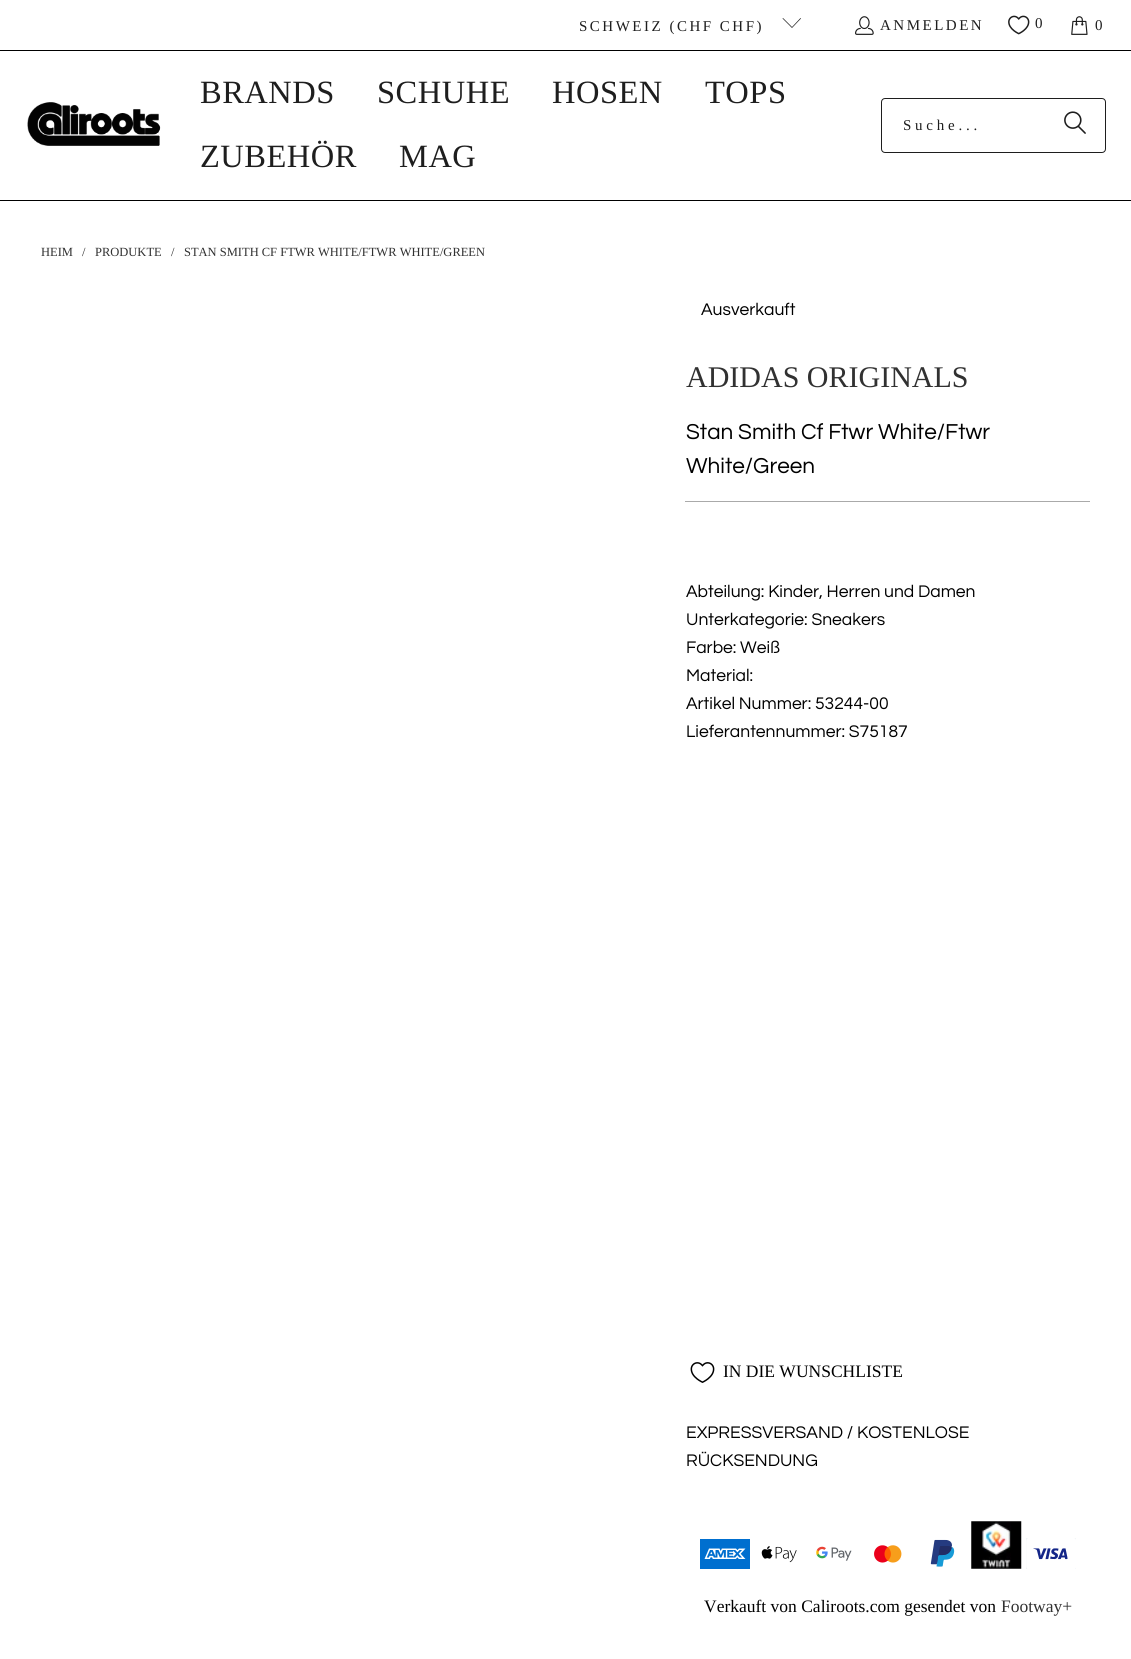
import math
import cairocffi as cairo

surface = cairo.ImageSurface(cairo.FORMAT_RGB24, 1131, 1659)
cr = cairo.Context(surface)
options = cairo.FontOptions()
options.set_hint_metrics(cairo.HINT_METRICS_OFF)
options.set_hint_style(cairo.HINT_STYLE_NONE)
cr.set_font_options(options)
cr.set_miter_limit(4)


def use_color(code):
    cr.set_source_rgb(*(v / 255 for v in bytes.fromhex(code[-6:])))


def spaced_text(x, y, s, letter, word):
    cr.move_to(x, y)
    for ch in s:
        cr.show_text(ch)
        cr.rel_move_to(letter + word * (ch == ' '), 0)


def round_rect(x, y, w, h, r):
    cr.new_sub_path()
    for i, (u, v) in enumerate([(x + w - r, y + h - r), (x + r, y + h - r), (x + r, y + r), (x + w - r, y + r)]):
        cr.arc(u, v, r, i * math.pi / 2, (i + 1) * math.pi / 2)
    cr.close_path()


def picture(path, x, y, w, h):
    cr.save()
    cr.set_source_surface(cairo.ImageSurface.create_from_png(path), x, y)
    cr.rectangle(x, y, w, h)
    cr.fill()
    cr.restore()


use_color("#ffffff")
cr.paint()
cr.select_font_face("Liberation Serif")
cr.set_font_size(15)
use_color("#1e1e1e")
spaced_text(579, 31, "SCHWEIZ (CHF CHF)", 2.5, 0)
cr.new_path()
cr.move_to(792, 28)
cr.line_to(782.5, 18.5)
cr.line_to(783, 18)
cr.line_to(792, 27)
cr.line_to(800.5, 18)
cr.line_to(801, 18.5)
cr.close_path()
cr.fill()
picture("img1.png", 855, 16, 19, 19)
spaced_text(880, 30, "ANMELDEN", 2.5, 0)
picture("img2.png", 1008, 15, 22, 20)
spaced_text(1035, 28, "0", 8, 0)
picture("img3.png", 1071, 16, 17, 19)
cr.move_to(1095, 30)
cr.show_text("0")
use_color("#000000")
cr.rectangle(0, 50, 1131, 1)
cr.fill()
cr.rectangle(0, 200, 1131, 1)
cr.fill()
picture("img4.png", 27, 102, 134, 44)
cr.set_font_size(32.5)
use_color("#1e1e1e")
spaced_text(200, 103, "BRANDS", 0.5, 0)
spaced_text(377, 103, "SCHUHE", 0.5, 0)
spaced_text(552, 103, "HOSEN", 0.5, 0)
spaced_text(705, 103, "TOPS", 0.5, 0)
spaced_text(200, 167, "ZUBEHÖR", 0.5, 0)
spaced_text(399, 167, "MAG", 0.5, 0)
round_rect(881.5, 98.5, 224, 54, 3.5)
cr.set_line_width(1)
cr.stroke()
cr.set_font_size(15)
spaced_text(903, 130, "Suche...", 3.75, 0)
picture("img5.png", 1064, 111, 22, 23)
cr.set_font_size(12.5)
use_color("#313131")
cr.move_to(41, 256)
cr.show_text("HEIM")
cr.move_to(82, 256)
cr.show_text("/")
cr.move_to(95, 256)
cr.show_text("PRODUKTE")
cr.move_to(171, 256)
cr.show_text("/")
cr.move_to(184, 256)
cr.show_text("STAN SMITH CF FTWR WHITE/FTWR WHITE/GREEN")
cr.select_font_face("Questrial")
cr.set_font_size(17.5)
use_color("#000000")
cr.move_to(701, 315)
cr.show_text("Ausverkauft")
cr.select_font_face("Liberation Serif")
cr.set_font_size(30)
use_color("#313131")
cr.move_to(686, 387)
cr.show_text("ADIDAS ORIGINALS")
cr.select_font_face("Questrial")
cr.set_font_size(22.5)
use_color("#000000")
cr.move_to(686, 439)
cr.show_text("Stan Smith Cf Ftwr White/Ftwr")
cr.move_to(686, 473)
cr.show_text("White/Green")
use_color("#aaaaaa")
cr.rectangle(685, 501, 405, 1)
cr.fill()
cr.set_font_size(17.5)
use_color("#000000")
cr.move_to(686, 597)
cr.show_text("Abteilung: Kinder, Herren und Damen")
cr.move_to(686, 625)
cr.show_text("Unterkategorie: Sneakers")
cr.move_to(686, 653)
cr.show_text("Farbe: Weiß")
cr.move_to(686, 681)
cr.show_text("Material:")
cr.move_to(686, 709)
cr.show_text("Artikel Nummer: 53244-00")
cr.move_to(686, 737)
cr.show_text("Lieferantennummer: S75187")
picture("img6.png", 690, 1362, 25, 21)
cr.select_font_face("Liberation Serif")
cr.move_to(723, 1377)
cr.show_text("IN DIE WUNSCHLISTE")
cr.select_font_face("Questrial")
cr.move_to(686, 1438)
cr.show_text("EXPRESSVERSAND / KOSTENLOSE")
cr.move_to(686, 1466)
cr.show_text("RÜCKSENDUNG")
picture("img7.png", 700, 1539, 50, 30)
picture("img8.png", 761, 1546, 36, 17)
picture("img9.png", 816, 1546, 36, 15)
picture("img10.png", 874, 1545, 28, 18)
picture("img11.png", 930, 1539, 25, 28)
picture("img12.png", 971, 1521, 51, 48)
picture("img13.png", 1026, 1538, 50, 31)
cr.select_font_face("Liberation Serif")
cr.move_to(704, 1612)
cr.show_text("Verkauft von Caliroots.com gesendet von")
use_color("#313131")
cr.move_to(1001, 1612)
cr.show_text("Footway+")
surface.write_to_png("result.png")
